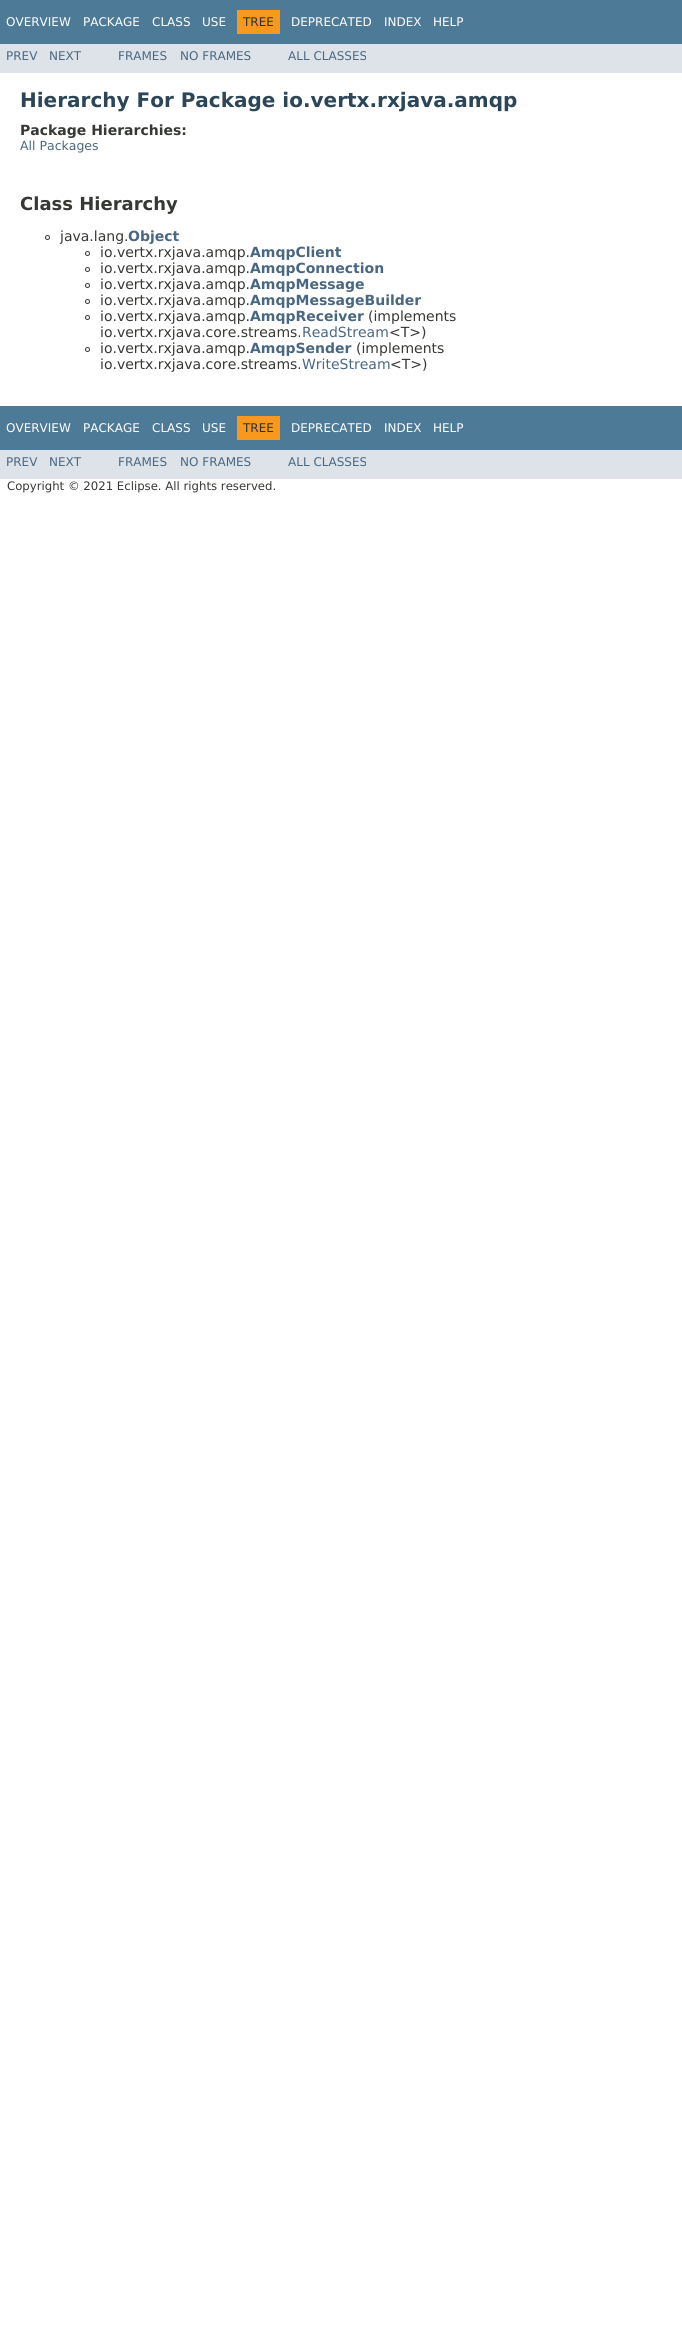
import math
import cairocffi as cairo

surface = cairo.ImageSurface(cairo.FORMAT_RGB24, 682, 2344)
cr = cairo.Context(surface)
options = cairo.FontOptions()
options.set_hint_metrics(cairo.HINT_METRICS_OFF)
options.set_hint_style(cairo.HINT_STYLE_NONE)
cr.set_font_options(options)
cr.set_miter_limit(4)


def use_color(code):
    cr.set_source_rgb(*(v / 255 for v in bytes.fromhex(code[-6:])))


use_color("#ffffff")
cr.paint()
use_color("#4d7a97")
cr.rectangle(0, 0, 682, 44)
cr.fill()
cr.select_font_face("DejaVu Sans")
cr.set_font_size(12)
use_color("#ffffff")
cr.move_to(6, 26)
cr.show_text("OVERVIEW")
cr.move_to(83, 26)
cr.show_text("PACKAGE")
cr.move_to(152, 26)
cr.show_text("CLASS")
cr.move_to(202, 26)
cr.show_text("USE")
use_color("#f8981d")
cr.rectangle(237, 10, 43, 24)
cr.fill()
use_color("#253441")
cr.move_to(243, 26)
cr.show_text("TREE")
use_color("#ffffff")
cr.move_to(291, 26)
cr.show_text("DEPRECATED")
cr.move_to(384, 26)
cr.show_text("INDEX")
cr.move_to(433, 26)
cr.show_text("HELP")
use_color("#dee3e9")
cr.rectangle(0, 44, 682, 29)
cr.fill()
use_color("#4a6782")
cr.move_to(6, 60)
cr.show_text("PREV")
cr.move_to(49, 60)
cr.show_text("NEXT")
cr.move_to(118, 60)
cr.show_text("FRAMES")
cr.move_to(180, 60)
cr.show_text("NO FRAMES")
cr.move_to(288, 60)
cr.show_text("ALL CLASSES")
cr.select_font_face("DejaVu Sans", cairo.FONT_SLANT_NORMAL, cairo.FONT_WEIGHT_BOLD)
cr.set_font_size(20)
use_color("#2c4557")
cr.move_to(20, 107)
cr.show_text("Hierarchy For Package io.vertx.rxjava.amqp")
cr.set_font_size(14)
use_color("#353833")
cr.move_to(20, 135)
cr.show_text("Package Hierarchies:")
cr.select_font_face("DejaVu Sans")
cr.set_font_size(12.5)
use_color("#4a6782")
cr.move_to(20, 150)
cr.show_text("All Packages")
cr.select_font_face("DejaVu Sans", cairo.FONT_SLANT_NORMAL, cairo.FONT_WEIGHT_BOLD)
cr.set_font_size(18)
use_color("#353833")
cr.move_to(20, 210)
cr.show_text("Class Hierarchy")
cr.new_path()
cr.arc(47.5, 237.5, 2, 0, 2 * math.pi)
cr.set_line_width(1)
cr.stroke()
cr.select_font_face("DejaVu Sans")
cr.set_font_size(14)
cr.move_to(60, 241)
cr.show_text("java.lang.")
cr.select_font_face("DejaVu Sans", cairo.FONT_SLANT_NORMAL, cairo.FONT_WEIGHT_BOLD)
use_color("#4a6782")
cr.move_to(128, 241)
cr.show_text("Object")
cr.new_path()
cr.arc(87.5, 253.5, 2, 0, 2 * math.pi)
use_color("#353833")
cr.stroke()
cr.select_font_face("DejaVu Sans")
cr.move_to(100, 257)
cr.show_text("io.vertx.rxjava.amqp.")
cr.select_font_face("DejaVu Sans", cairo.FONT_SLANT_NORMAL, cairo.FONT_WEIGHT_BOLD)
use_color("#4a6782")
cr.move_to(250, 257)
cr.show_text("AmqpClient")
cr.new_path()
cr.arc(87.5, 269.5, 2, 0, 2 * math.pi)
use_color("#353833")
cr.stroke()
cr.select_font_face("DejaVu Sans")
cr.move_to(100, 273)
cr.show_text("io.vertx.rxjava.amqp.")
cr.select_font_face("DejaVu Sans", cairo.FONT_SLANT_NORMAL, cairo.FONT_WEIGHT_BOLD)
use_color("#4a6782")
cr.move_to(250, 273)
cr.show_text("AmqpConnection")
cr.new_path()
cr.arc(87.5, 285.5, 2, 0, 2 * math.pi)
use_color("#353833")
cr.stroke()
cr.select_font_face("DejaVu Sans")
cr.move_to(100, 289)
cr.show_text("io.vertx.rxjava.amqp.")
cr.select_font_face("DejaVu Sans", cairo.FONT_SLANT_NORMAL, cairo.FONT_WEIGHT_BOLD)
use_color("#4a6782")
cr.move_to(250, 289)
cr.show_text("AmqpMessage")
cr.new_path()
cr.arc(87.5, 301.5, 2, 0, 2 * math.pi)
use_color("#353833")
cr.stroke()
cr.select_font_face("DejaVu Sans")
cr.move_to(100, 305)
cr.show_text("io.vertx.rxjava.amqp.")
cr.select_font_face("DejaVu Sans", cairo.FONT_SLANT_NORMAL, cairo.FONT_WEIGHT_BOLD)
use_color("#4a6782")
cr.move_to(250, 305)
cr.show_text("AmqpMessageBuilder")
cr.new_path()
cr.arc(87.5, 317.5, 2, 0, 2 * math.pi)
use_color("#353833")
cr.stroke()
cr.select_font_face("DejaVu Sans")
cr.move_to(100, 321)
cr.show_text("io.vertx.rxjava.amqp.")
cr.select_font_face("DejaVu Sans", cairo.FONT_SLANT_NORMAL, cairo.FONT_WEIGHT_BOLD)
use_color("#4a6782")
cr.move_to(250, 321)
cr.show_text("AmqpReceiver")
cr.select_font_face("DejaVu Sans")
use_color("#353833")
cr.move_to(368, 321)
cr.show_text("(implements")
cr.move_to(100, 337)
cr.show_text("io.vertx.rxjava.core.streams.")
use_color("#4a6782")
cr.move_to(302, 337)
cr.show_text("ReadStream")
use_color("#353833")
cr.move_to(389, 337)
cr.show_text("<T>)")
cr.new_path()
cr.arc(87.5, 349.5, 2, 0, 2 * math.pi)
cr.stroke()
cr.move_to(100, 353)
cr.show_text("io.vertx.rxjava.amqp.")
cr.select_font_face("DejaVu Sans", cairo.FONT_SLANT_NORMAL, cairo.FONT_WEIGHT_BOLD)
use_color("#4a6782")
cr.move_to(250, 353)
cr.show_text("AmqpSender")
cr.select_font_face("DejaVu Sans")
use_color("#353833")
cr.move_to(356, 353)
cr.show_text("(implements")
cr.move_to(100, 369)
cr.show_text("io.vertx.rxjava.core.streams.")
use_color("#4a6782")
cr.move_to(302, 369)
cr.show_text("WriteStream")
use_color("#353833")
cr.move_to(390, 369)
cr.show_text("<T>)")
use_color("#4d7a97")
cr.rectangle(0, 406, 682, 44)
cr.fill()
cr.set_font_size(12)
use_color("#ffffff")
cr.move_to(6, 432)
cr.show_text("OVERVIEW")
cr.move_to(83, 432)
cr.show_text("PACKAGE")
cr.move_to(152, 432)
cr.show_text("CLASS")
cr.move_to(202, 432)
cr.show_text("USE")
use_color("#f8981d")
cr.rectangle(237, 416, 43, 24)
cr.fill()
use_color("#253441")
cr.move_to(243, 432)
cr.show_text("TREE")
use_color("#ffffff")
cr.move_to(291, 432)
cr.show_text("DEPRECATED")
cr.move_to(384, 432)
cr.show_text("INDEX")
cr.move_to(433, 432)
cr.show_text("HELP")
use_color("#dee3e9")
cr.rectangle(0, 450, 682, 29)
cr.fill()
use_color("#4a6782")
cr.move_to(6, 466)
cr.show_text("PREV")
cr.move_to(49, 466)
cr.show_text("NEXT")
cr.move_to(118, 466)
cr.show_text("FRAMES")
cr.move_to(180, 466)
cr.show_text("NO FRAMES")
cr.move_to(288, 466)
cr.show_text("ALL CLASSES")
cr.set_font_size(11.7)
use_color("#353833")
cr.move_to(7, 490)
cr.show_text("Copyright © 2021 Eclipse. All rights reserved.")
surface.write_to_png("result.png")
